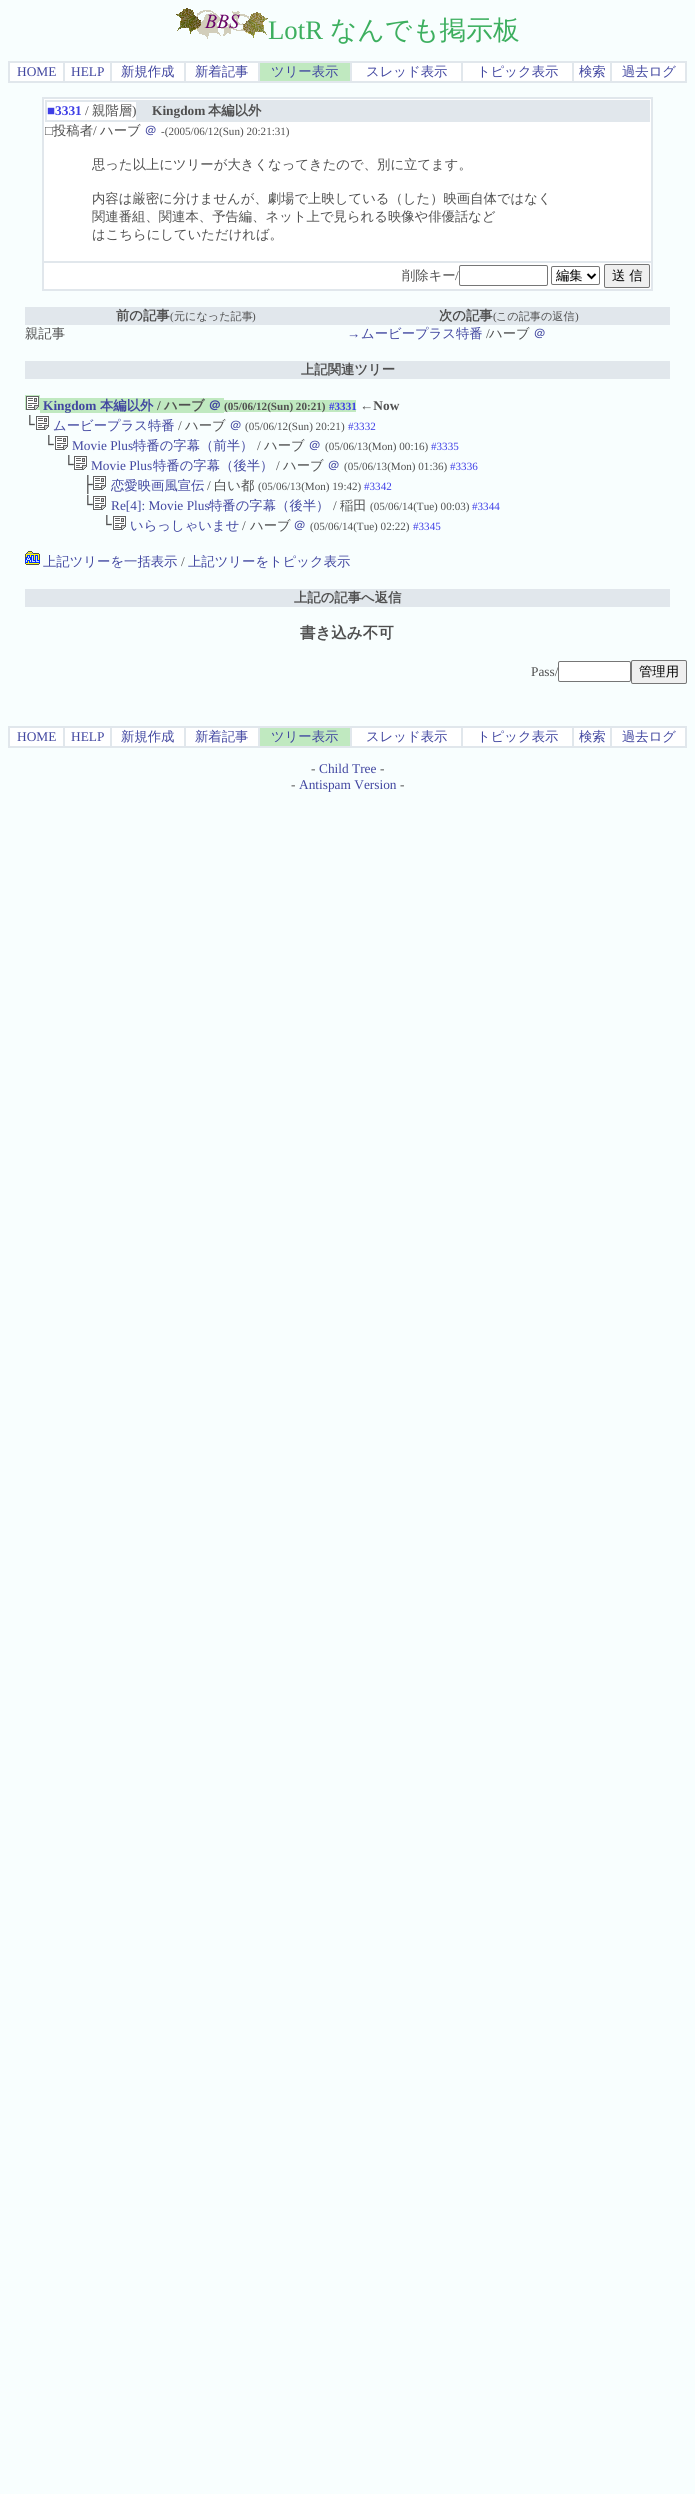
import math
import cairocffi as cairo

surface = cairo.ImageSurface(cairo.FORMAT_RGB24, 695, 2494)
cr = cairo.Context(surface)
options = cairo.FontOptions()
options.set_hint_metrics(cairo.HINT_METRICS_OFF)
options.set_hint_style(cairo.HINT_STYLE_NONE)
cr.set_font_options(options)
cr.set_miter_limit(4)


def use_color(code):
    cr.set_source_rgb(*(v / 255 for v in bytes.fromhex(code[-6:])))


def round_rect(x, y, w, h, r):
    cr.new_sub_path()
    for i, (u, v) in enumerate([(x + w - r, y + h - r), (x + r, y + h - r), (x + r, y + r), (x + w - r, y + r)]):
        cr.arc(u, v, r, i * math.pi / 2, (i + 1) * math.pi / 2)
    cr.close_path()


def picture(path, x, y, w, h):
    cr.save()
    cr.set_source_surface(cairo.ImageSurface.create_from_png(path), x, y)
    cr.rectangle(x, y, w, h)
    cr.fill()
    cr.restore()


use_color("#f8fefe")
cr.paint()
picture("img1.png", 176, 8, 92, 31)
cr.select_font_face("Liberation Serif")
cr.set_font_size(26.75)
use_color("#3daf5f")
cr.move_to(268, 39)
cr.show_text("LotR")
cr.select_font_face("WenQuanYi Zen Hei Medium")
cr.move_to(330, 39)
cr.show_text("なんでも掲示板")
cr.rectangle(8.5, 61.5, 678, 21)
use_color("#e1e7ec")
cr.set_line_width(1)
cr.stroke()
use_color("#ffffff")
cr.rectangle(10, 63, 675, 18)
cr.fill()
cr.rectangle(9.5, 62.5, 54, 19)
use_color("#e1e7ec")
cr.stroke()
cr.select_font_face("Liberation Serif")
cr.set_font_size(13.35)
use_color("#4146a0")
cr.move_to(17, 76)
cr.show_text("HOME")
cr.rectangle(64.5, 62.5, 46, 19)
use_color("#e1e7ec")
cr.stroke()
use_color("#4146a0")
cr.move_to(71, 76)
cr.show_text("HELP")
cr.rectangle(111.5, 62.5, 73, 19)
use_color("#e1e7ec")
cr.stroke()
cr.select_font_face("WenQuanYi Zen Hei Medium")
use_color("#4146a0")
cr.move_to(121, 76)
cr.show_text("新規作成")
cr.rectangle(185.5, 62.5, 73, 19)
use_color("#e1e7ec")
cr.stroke()
use_color("#4146a0")
cr.move_to(195, 76)
cr.show_text("新着記事")
use_color("#c0e9c0")
cr.rectangle(259.5, 62.5, 91, 19)
cr.fill_preserve()
use_color("#e1e7ec")
cr.stroke()
use_color("#4146a0")
cr.move_to(271, 76)
cr.show_text("ツリー表示")
cr.rectangle(351.5, 62.5, 110, 19)
use_color("#e1e7ec")
cr.stroke()
use_color("#4146a0")
cr.move_to(366, 76)
cr.show_text("スレッド表示")
cr.rectangle(462.5, 62.5, 110, 19)
use_color("#e1e7ec")
cr.stroke()
use_color("#4146a0")
cr.move_to(477, 76)
cr.show_text("トピック表示")
cr.rectangle(573.5, 62.5, 37, 19)
use_color("#e1e7ec")
cr.stroke()
use_color("#4146a0")
cr.move_to(579, 76)
cr.show_text("検索")
cr.rectangle(611.5, 62.5, 74, 19)
use_color("#e1e7ec")
cr.stroke()
use_color("#4146a0")
cr.move_to(622, 76)
cr.show_text("過去ログ")
use_color("#ffffff")
cr.rectangle(44, 99, 607, 190)
cr.fill()
cr.rectangle(42.5, 97.5, 610, 193)
use_color("#e1e7ec")
cr.stroke()
cr.rectangle(43.5, 98.5, 608, 163)
cr.stroke()
cr.rectangle(45.5, 100.5, 604, 21)
cr.stroke()
cr.rectangle(46.5, 101.5, 90, 19)
cr.stroke()
cr.select_font_face("Liberation Serif", cairo.FONT_SLANT_NORMAL, cairo.FONT_WEIGHT_BOLD)
use_color("#3e3ee6")
cr.move_to(47, 115)
cr.show_text("■3331")
cr.select_font_face("Liberation Serif")
use_color("#4f4f4f")
cr.move_to(85, 115)
cr.show_text("/")
cr.select_font_face("WenQuanYi Zen Hei Medium")
cr.move_to(92, 115)
cr.show_text("親階層")
cr.select_font_face("Liberation Serif")
cr.move_to(132, 115)
cr.show_text(")")
use_color("#e1e7ec")
cr.rectangle(137, 101, 512, 20)
cr.fill()
cr.select_font_face("Liberation Serif", cairo.FONT_SLANT_NORMAL, cairo.FONT_WEIGHT_BOLD)
use_color("#4f4f4f")
cr.move_to(152, 115)
cr.show_text("Kingdom")
cr.select_font_face("WenQuanYi Zen Hei", cairo.FONT_SLANT_NORMAL, cairo.FONT_WEIGHT_BOLD)
cr.move_to(208, 115)
cr.show_text("本編以外")
cr.select_font_face("Liberation Serif")
cr.move_to(45, 135)
cr.show_text("□")
cr.select_font_face("WenQuanYi Zen Hei Medium")
cr.move_to(53, 135)
cr.show_text("投稿者")
cr.select_font_face("Liberation Serif")
cr.move_to(93, 135)
cr.show_text("/")
cr.select_font_face("WenQuanYi Zen Hei Medium")
cr.move_to(100, 135)
cr.show_text("ハーブ")
use_color("#4146a0")
cr.move_to(144, 135)
cr.show_text("＠")
cr.select_font_face("Liberation Serif")
cr.set_font_size(11.1)
use_color("#4f4f4f")
cr.move_to(161, 135)
cr.show_text("-(2005/06/12(Sun) 20:21:31)")
cr.select_font_face("WenQuanYi Zen Hei Medium")
cr.set_font_size(13.35)
cr.move_to(92, 169)
cr.show_text("思った以上にツリーが大きくなってきたので、別に立てます。")
cr.move_to(92, 203)
cr.show_text("内容は厳密に分けませんが、劇場で上映している（した）映画自体ではなく")
cr.move_to(92, 221)
cr.show_text("関連番組、関連本、予告編、ネット上で見られる映像や俳優話など")
cr.move_to(92, 239)
cr.show_text("はこちらにしていただければ。")
cr.rectangle(43.5, 262.5, 608, 27)
use_color("#e1e7ec")
cr.stroke()
use_color("#4f4f4f")
cr.move_to(402, 280)
cr.show_text("削除キー")
cr.select_font_face("Liberation Serif")
cr.move_to(455, 280)
cr.show_text("/")
round_rect(459.5, 265.5, 88, 20, 1.5)
use_color("#767676")
cr.stroke()
round_rect(551.5, 266.5, 48, 18, 1.5)
cr.stroke()
cr.new_path()
cr.move_to(587.5, 274)
cr.line_to(591.5, 278)
cr.line_to(595.5, 274)
use_color("#000000")
cr.set_line_width(2)
cr.stroke()
cr.select_font_face("WenQuanYi Zen Hei Medium")
cr.move_to(556, 280)
cr.show_text("編集")
use_color("#efefef")
round_rect(604.5, 264.5, 45, 23, 1.5)
cr.fill_preserve()
use_color("#767676")
cr.set_line_width(1)
cr.stroke()
use_color("#000000")
cr.move_to(612, 280)
cr.show_text("送 信")
use_color("#e1e7ec")
cr.rectangle(25, 307, 645, 18)
cr.fill()
cr.select_font_face("WenQuanYi Zen Hei", cairo.FONT_SLANT_NORMAL, cairo.FONT_WEIGHT_BOLD)
use_color("#4f4f4f")
cr.move_to(116, 320)
cr.show_text("前の記事")
cr.select_font_face("Liberation Serif")
cr.set_font_size(11.1)
cr.move_to(170, 320)
cr.show_text("(")
cr.select_font_face("WenQuanYi Zen Hei Medium")
cr.move_to(174, 320)
cr.show_text("元になった記事")
cr.select_font_face("Liberation Serif")
cr.move_to(252, 320)
cr.show_text(")")
cr.select_font_face("WenQuanYi Zen Hei", cairo.FONT_SLANT_NORMAL, cairo.FONT_WEIGHT_BOLD)
cr.set_font_size(13.35)
cr.move_to(439, 320)
cr.show_text("次の記事")
cr.select_font_face("Liberation Serif")
cr.set_font_size(11.1)
cr.move_to(493, 320)
cr.show_text("(")
cr.select_font_face("WenQuanYi Zen Hei Medium")
cr.move_to(496, 320)
cr.show_text("この記事の返信")
cr.select_font_face("Liberation Serif")
cr.move_to(575, 320)
cr.show_text(")")
cr.select_font_face("WenQuanYi Zen Hei Medium")
cr.set_font_size(13.35)
cr.move_to(25, 338)
cr.show_text("親記事")
cr.select_font_face("Liberation Serif")
use_color("#4146a0")
cr.move_to(347, 338)
cr.show_text("→")
cr.select_font_face("WenQuanYi Zen Hei Medium")
cr.move_to(361, 338)
cr.show_text("ムービープラス特番")
cr.select_font_face("Liberation Serif")
use_color("#4f4f4f")
cr.move_to(486, 338)
cr.show_text("/")
cr.select_font_face("WenQuanYi Zen Hei Medium")
cr.move_to(489, 338)
cr.show_text("ハーブ")
use_color("#4146a0")
cr.move_to(533, 338)
cr.show_text("＠")
use_color("#e1e7ec")
cr.rectangle(25, 361, 645, 18)
cr.fill()
cr.select_font_face("WenQuanYi Zen Hei", cairo.FONT_SLANT_NORMAL, cairo.FONT_WEIGHT_BOLD)
use_color("#4f4f4f")
cr.move_to(301, 374)
cr.show_text("上記関連ツリー")
use_color("#c0e9c0")
cr.rectangle(25, 395, 15, 15)
cr.fill()
picture("img2.png", 26, 396, 13, 14)
cr.rectangle(40, 398, 184, 15)
cr.fill()
cr.select_font_face("Liberation Serif", cairo.FONT_SLANT_NORMAL, cairo.FONT_WEIGHT_BOLD)
use_color("#4146a0")
cr.move_to(43, 410)
cr.show_text("Kingdom")
cr.select_font_face("WenQuanYi Zen Hei", cairo.FONT_SLANT_NORMAL, cairo.FONT_WEIGHT_BOLD)
cr.move_to(100, 410)
cr.show_text("本編以外")
cr.select_font_face("Liberation Serif", cairo.FONT_SLANT_NORMAL, cairo.FONT_WEIGHT_BOLD)
use_color("#4f4f4f")
cr.move_to(157, 410)
cr.show_text("/")
cr.select_font_face("WenQuanYi Zen Hei", cairo.FONT_SLANT_NORMAL, cairo.FONT_WEIGHT_BOLD)
cr.move_to(164, 410)
cr.show_text("ハーブ")
use_color("#4146a0")
cr.move_to(208, 410)
cr.show_text("＠")
use_color("#c0e9c0")
cr.rectangle(224, 400, 132, 12)
cr.fill()
cr.select_font_face("Liberation Serif", cairo.FONT_SLANT_NORMAL, cairo.FONT_WEIGHT_BOLD)
cr.set_font_size(11.1)
use_color("#4f4f4f")
cr.move_to(224, 410)
cr.show_text("(05/06/12(Sun) 20:21)")
use_color("#3e3ee6")
cr.move_to(329, 410)
cr.show_text("#3331")
cr.set_font_size(13.35)
use_color("#4f4f4f")
cr.move_to(360, 410)
cr.show_text("←Now")
cr.select_font_face("DejaVu Sans Mono")
cr.set_font_size(16)
cr.move_to(25, 430)
cr.show_text("└")
picture("img3.png", 36, 416, 13, 14)
cr.select_font_face("WenQuanYi Zen Hei Medium")
cr.set_font_size(13.35)
use_color("#4146a0")
cr.move_to(53, 430)
cr.show_text("ムービープラス特番")
cr.select_font_face("Liberation Serif")
use_color("#4f4f4f")
cr.move_to(178, 430)
cr.show_text("/")
cr.select_font_face("WenQuanYi Zen Hei Medium")
cr.move_to(185, 430)
cr.show_text("ハーブ")
use_color("#4146a0")
cr.move_to(229, 430)
cr.show_text("＠")
cr.select_font_face("Liberation Serif")
cr.set_font_size(11.1)
use_color("#4f4f4f")
cr.move_to(245, 430)
cr.show_text("(05/06/12(Sun) 20:21)")
use_color("#3e3ee6")
cr.move_to(348, 430)
cr.show_text("#3332")
cr.select_font_face("DejaVu Sans Mono")
cr.set_font_size(16)
use_color("#4f4f4f")
cr.move_to(44, 450)
cr.show_text("└")
picture("img3.png", 55, 436, 13, 14)
cr.select_font_face("Liberation Serif")
cr.set_font_size(13.35)
use_color("#4146a0")
cr.move_to(72, 450)
cr.show_text("Movie Plus")
cr.select_font_face("WenQuanYi Zen Hei Medium")
cr.move_to(133, 450)
cr.show_text("特番の字幕（前半）")
cr.select_font_face("Liberation Serif")
use_color("#4f4f4f")
cr.move_to(257, 450)
cr.show_text("/")
cr.select_font_face("WenQuanYi Zen Hei Medium")
cr.move_to(264, 450)
cr.show_text("ハーブ")
use_color("#4146a0")
cr.move_to(308, 450)
cr.show_text("＠")
cr.select_font_face("Liberation Serif")
cr.set_font_size(11.1)
use_color("#4f4f4f")
cr.move_to(325, 450)
cr.show_text("(05/06/13(Mon) 00:16)")
use_color("#3e3ee6")
cr.move_to(431, 450)
cr.show_text("#3335")
cr.select_font_face("DejaVu Sans Mono")
cr.set_font_size(16)
use_color("#4f4f4f")
cr.move_to(64, 470)
cr.show_text("└")
picture("img3.png", 74, 456, 13, 14)
cr.select_font_face("Liberation Serif")
cr.set_font_size(13.35)
use_color("#4146a0")
cr.move_to(91, 470)
cr.show_text("Movie Plus")
cr.select_font_face("WenQuanYi Zen Hei Medium")
cr.move_to(153, 470)
cr.show_text("特番の字幕（後半）")
cr.select_font_face("Liberation Serif")
use_color("#4f4f4f")
cr.move_to(276, 470)
cr.show_text("/")
cr.select_font_face("WenQuanYi Zen Hei Medium")
cr.move_to(283, 470)
cr.show_text("ハーブ")
use_color("#4146a0")
cr.move_to(327, 470)
cr.show_text("＠")
cr.select_font_face("Liberation Serif")
cr.set_font_size(11.1)
use_color("#4f4f4f")
cr.move_to(344, 470)
cr.show_text("(05/06/13(Mon) 01:36)")
use_color("#3e3ee6")
cr.move_to(450, 470)
cr.show_text("#3336")
cr.select_font_face("DejaVu Sans Mono")
cr.set_font_size(16)
use_color("#4f4f4f")
cr.move_to(83, 490)
cr.show_text("├")
picture("img3.png", 93, 476, 13, 14)
cr.select_font_face("WenQuanYi Zen Hei Medium")
cr.set_font_size(13.35)
use_color("#4146a0")
cr.move_to(111, 490)
cr.show_text("恋愛映画風宣伝")
cr.select_font_face("Liberation Serif")
use_color("#4f4f4f")
cr.move_to(207, 490)
cr.show_text("/")
cr.select_font_face("WenQuanYi Zen Hei Medium")
cr.move_to(214, 490)
cr.show_text("白い都")
cr.select_font_face("Liberation Serif")
cr.set_font_size(11.1)
cr.move_to(258, 490)
cr.show_text("(05/06/13(Mon) 19:42)")
use_color("#3e3ee6")
cr.move_to(364, 490)
cr.show_text("#3342")
cr.select_font_face("DejaVu Sans Mono")
cr.set_font_size(16)
use_color("#4f4f4f")
cr.move_to(83, 510)
cr.show_text("└")
picture("img3.png", 93, 496, 13, 14)
cr.select_font_face("Liberation Serif")
cr.set_font_size(13.35)
use_color("#4146a0")
cr.move_to(111, 510)
cr.show_text("Re[4]: Movie Plus")
cr.select_font_face("WenQuanYi Zen Hei Medium")
cr.move_to(209, 510)
cr.show_text("特番の字幕（後半）")
cr.select_font_face("Liberation Serif")
use_color("#4f4f4f")
cr.move_to(333, 510)
cr.show_text("/")
cr.select_font_face("WenQuanYi Zen Hei Medium")
cr.move_to(340, 510)
cr.show_text("稲田")
cr.select_font_face("Liberation Serif")
cr.set_font_size(11.1)
cr.move_to(370, 510)
cr.show_text("(05/06/14(Tue) 00:03)")
use_color("#3e3ee6")
cr.move_to(472, 510)
cr.show_text("#3344")
cr.select_font_face("DejaVu Sans Mono")
cr.set_font_size(16)
use_color("#4f4f4f")
cr.move_to(102, 530)
cr.show_text("└")
picture("img3.png", 113, 516, 13, 14)
cr.select_font_face("WenQuanYi Zen Hei Medium")
cr.set_font_size(13.35)
use_color("#4146a0")
cr.move_to(130, 530)
cr.show_text("いらっしゃいませ")
cr.select_font_face("Liberation Serif")
use_color("#4f4f4f")
cr.move_to(242, 530)
cr.show_text("/")
cr.select_font_face("WenQuanYi Zen Hei Medium")
cr.move_to(250, 530)
cr.show_text("ハーブ")
use_color("#4146a0")
cr.move_to(293, 530)
cr.show_text("＠")
cr.select_font_face("Liberation Serif")
cr.set_font_size(11.1)
use_color("#4f4f4f")
cr.move_to(310, 530)
cr.show_text("(05/06/14(Tue) 02:22)")
use_color("#3e3ee6")
cr.move_to(413, 530)
cr.show_text("#3345")
picture("img4.png", 25, 551, 15, 14)
cr.select_font_face("WenQuanYi Zen Hei Medium")
cr.set_font_size(13.35)
use_color("#4146a0")
cr.move_to(43, 566)
cr.show_text("上記ツリーを一括表示")
cr.select_font_face("Liberation Serif")
use_color("#4f4f4f")
cr.move_to(181, 566)
cr.show_text("/")
cr.select_font_face("WenQuanYi Zen Hei Medium")
use_color("#4146a0")
cr.move_to(188, 566)
cr.show_text("上記ツリーをトピック表示")
use_color("#e1e7ec")
cr.rectangle(25, 589, 645, 18)
cr.fill()
cr.select_font_face("WenQuanYi Zen Hei", cairo.FONT_SLANT_NORMAL, cairo.FONT_WEIGHT_BOLD)
use_color("#4f4f4f")
cr.move_to(294, 602)
cr.show_text("上記の記事へ返信")
cr.set_font_size(15.5)
cr.move_to(300, 638)
cr.show_text("書き込み不可")
cr.select_font_face("Liberation Serif")
cr.set_font_size(13.35)
cr.move_to(531, 676)
cr.show_text("Pass/")
use_color("#ffffff")
round_rect(558.5, 661.5, 72, 20, 1.5)
cr.fill_preserve()
use_color("#767676")
cr.stroke()
use_color("#efefef")
round_rect(631.5, 660.5, 55, 23, 1.5)
cr.fill_preserve()
use_color("#767676")
cr.stroke()
cr.select_font_face("WenQuanYi Zen Hei Medium")
use_color("#000000")
cr.move_to(639, 676)
cr.show_text("管理用")
cr.rectangle(8.5, 726.5, 678, 21)
use_color("#e1e7ec")
cr.stroke()
use_color("#ffffff")
cr.rectangle(10, 728, 675, 18)
cr.fill()
cr.rectangle(9.5, 727.5, 54, 19)
use_color("#e1e7ec")
cr.stroke()
cr.select_font_face("Liberation Serif")
use_color("#4146a0")
cr.move_to(17, 741)
cr.show_text("HOME")
cr.rectangle(64.5, 727.5, 46, 19)
use_color("#e1e7ec")
cr.stroke()
use_color("#4146a0")
cr.move_to(71, 741)
cr.show_text("HELP")
cr.rectangle(111.5, 727.5, 73, 19)
use_color("#e1e7ec")
cr.stroke()
cr.select_font_face("WenQuanYi Zen Hei Medium")
use_color("#4146a0")
cr.move_to(121, 741)
cr.show_text("新規作成")
cr.rectangle(185.5, 727.5, 73, 19)
use_color("#e1e7ec")
cr.stroke()
use_color("#4146a0")
cr.move_to(195, 741)
cr.show_text("新着記事")
use_color("#c0e9c0")
cr.rectangle(259.5, 727.5, 91, 19)
cr.fill_preserve()
use_color("#e1e7ec")
cr.stroke()
use_color("#4146a0")
cr.move_to(271, 741)
cr.show_text("ツリー表示")
cr.rectangle(351.5, 727.5, 110, 19)
use_color("#e1e7ec")
cr.stroke()
use_color("#4146a0")
cr.move_to(366, 741)
cr.show_text("スレッド表示")
cr.rectangle(462.5, 727.5, 110, 19)
use_color("#e1e7ec")
cr.stroke()
use_color("#4146a0")
cr.move_to(477, 741)
cr.show_text("トピック表示")
cr.rectangle(573.5, 727.5, 37, 19)
use_color("#e1e7ec")
cr.stroke()
use_color("#4146a0")
cr.move_to(579, 741)
cr.show_text("検索")
cr.rectangle(611.5, 727.5, 74, 19)
use_color("#e1e7ec")
cr.stroke()
use_color("#4146a0")
cr.move_to(622, 741)
cr.show_text("過去ログ")
cr.select_font_face("Liberation Serif")
use_color("#4f4f4f")
cr.move_to(311, 773)
cr.show_text("-")
use_color("#4146a0")
cr.move_to(319, 773)
cr.show_text("Child Tree")
use_color("#4f4f4f")
cr.move_to(380, 773)
cr.show_text("-")
cr.move_to(291, 789)
cr.show_text("-")
use_color("#4146a0")
cr.move_to(299, 789)
cr.show_text("Antispam Version")
use_color("#4f4f4f")
cr.move_to(400, 789)
cr.show_text("-")
surface.write_to_png("result.png")
